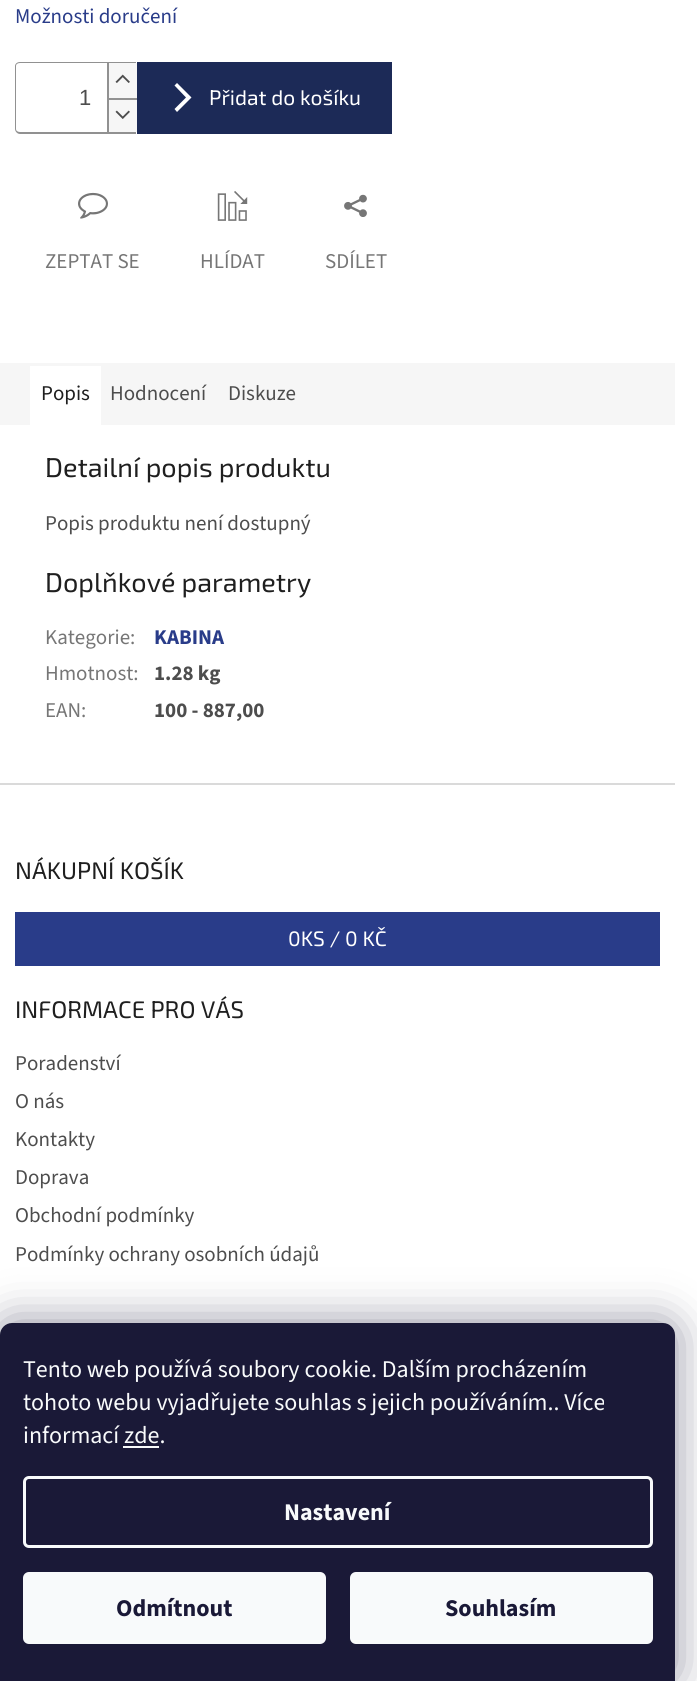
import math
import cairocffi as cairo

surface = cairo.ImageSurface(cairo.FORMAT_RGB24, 697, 1681)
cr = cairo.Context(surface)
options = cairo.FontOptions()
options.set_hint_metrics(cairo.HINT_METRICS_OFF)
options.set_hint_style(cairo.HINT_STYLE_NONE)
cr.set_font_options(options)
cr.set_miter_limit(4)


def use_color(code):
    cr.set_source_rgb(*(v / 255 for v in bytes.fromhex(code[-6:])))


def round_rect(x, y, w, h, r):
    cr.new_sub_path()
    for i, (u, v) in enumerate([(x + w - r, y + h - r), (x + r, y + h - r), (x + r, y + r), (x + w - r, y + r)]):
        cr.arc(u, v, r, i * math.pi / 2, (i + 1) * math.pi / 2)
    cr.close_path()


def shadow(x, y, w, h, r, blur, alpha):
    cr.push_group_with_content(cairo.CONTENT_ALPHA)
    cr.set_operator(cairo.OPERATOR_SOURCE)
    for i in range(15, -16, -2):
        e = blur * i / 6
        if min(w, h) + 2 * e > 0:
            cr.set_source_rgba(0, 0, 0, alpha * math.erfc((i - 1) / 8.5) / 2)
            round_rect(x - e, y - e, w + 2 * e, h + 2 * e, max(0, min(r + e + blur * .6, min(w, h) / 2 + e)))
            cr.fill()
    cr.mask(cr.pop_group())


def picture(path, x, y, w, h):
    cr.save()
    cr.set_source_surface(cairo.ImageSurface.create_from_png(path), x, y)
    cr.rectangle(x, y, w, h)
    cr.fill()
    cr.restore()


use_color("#ffffff")
cr.paint()
cr.select_font_face("Source Sans 3")
cr.set_font_size(21)
use_color("#293c89")
cr.move_to(15, 23)
cr.show_text("Možnosti doručení")
use_color("#919191")
cr.set_fill_rule(cairo.FILL_RULE_EVEN_ODD)
cr.new_path()
cr.move_to(20, 62)
cr.line_to(136, 62)
cr.line_to(136, 134)
cr.line_to(20, 134)
cr.curve_to(17, 134, 15, 131, 15, 129)
cr.line_to(15, 66)
cr.curve_to(15, 64, 17, 62, 20, 62)
cr.close_path()
cr.move_to(20, 63)
cr.line_to(136, 63)
cr.line_to(136, 132)
cr.line_to(20, 132)
cr.curve_to(18, 132, 16, 131, 16, 129)
cr.line_to(16, 66)
cr.curve_to(16, 64, 18, 63, 20, 63)
cr.close_path()
cr.fill()
cr.select_font_face("Liberation Sans")
cr.set_font_size(22)
use_color("#4d4d4d")
cr.move_to(79, 105)
cr.show_text("1")
use_color("#f6f6f6")
cr.rectangle(109, 63, 28, 35)
cr.fill()
use_color("#919191")
cr.rectangle(107, 63, 2, 35)
cr.fill()
picture("img1.png", 115, 74, 15, 9)
use_color("#f6f6f6")
cr.rectangle(109, 100, 28, 32)
cr.fill()
use_color("#919191")
cr.rectangle(107, 98, 30, 2)
cr.fill()
cr.rectangle(107, 98, 2, 34)
cr.fill()
picture("img2.png", 115, 110, 15, 9)
use_color("#1c2a57")
cr.rectangle(137, 62, 255, 72)
cr.fill()
use_color("#ffffff")
cr.set_fill_rule(cairo.FILL_RULE_WINDING)
cr.new_path()
cr.move_to(177, 112)
cr.line_to(174.5, 109)
cr.line_to(186, 97.5)
cr.line_to(174.5, 85.5)
cr.line_to(177, 83)
cr.line_to(191.5, 97.5)
cr.close_path()
cr.fill()
cr.select_font_face("Exo 2")
cr.set_font_size(21)
cr.move_to(209, 105)
cr.show_text("Přidat do košíku")
picture("img3.png", 78, 192, 30, 27)
cr.select_font_face("Source Sans 3")
use_color("#767676")
cr.move_to(45, 268)
cr.show_text("ZEPTAT SE")
picture("img4.png", 217, 191, 31, 30)
cr.move_to(200, 268)
cr.show_text("HLÍDAT")
picture("img5.png", 344, 194, 23, 23)
cr.move_to(325, 268)
cr.show_text("SDÍLET")
use_color("#f6f6f6")
cr.rectangle(0, 363, 675, 62)
cr.fill()
use_color("#ffffff")
cr.rectangle(30, 366, 71, 59)
cr.fill()
use_color("#1f1f1f")
cr.move_to(41, 400)
cr.show_text("Popis")
use_color("#4d4d4d")
cr.move_to(110, 400)
cr.show_text("Hodnocení")
cr.move_to(228, 400)
cr.show_text("Diskuze")
cr.select_font_face("Exo 2")
cr.set_font_size(27)
use_color("#1f1f1f")
cr.move_to(45, 477)
cr.show_text("Detailní popis produktu")
cr.select_font_face("Source Sans 3")
cr.set_font_size(21)
use_color("#4d4d4d")
cr.move_to(45, 530)
cr.show_text("Popis produktu není dostupný")
cr.select_font_face("Exo 2")
cr.set_font_size(27)
use_color("#1f1f1f")
cr.move_to(45, 592)
cr.show_text("Doplňkové parametry")
cr.select_font_face("Source Sans 3")
cr.set_font_size(21)
use_color("#767676")
cr.move_to(45, 644)
cr.show_text("Kategorie:")
cr.select_font_face("Source Sans 3", cairo.FONT_SLANT_NORMAL, cairo.FONT_WEIGHT_BOLD)
use_color("#293c89")
cr.move_to(154, 644)
cr.show_text("KABINA")
cr.select_font_face("Source Sans 3")
use_color("#767676")
cr.move_to(45, 680)
cr.show_text("Hmotnost:")
cr.select_font_face("Source Sans 3", cairo.FONT_SLANT_NORMAL, cairo.FONT_WEIGHT_BOLD)
use_color("#4d4d4d")
cr.move_to(154, 680)
cr.show_text("1.28 kg")
cr.select_font_face("Source Sans 3")
use_color("#767676")
cr.move_to(45, 717)
cr.show_text("EAN:")
cr.select_font_face("Source Sans 3", cairo.FONT_SLANT_NORMAL, cairo.FONT_WEIGHT_BOLD)
use_color("#4d4d4d")
cr.move_to(154, 717)
cr.show_text("100 - 887,00")
use_color("#dadada")
cr.rectangle(0, 783, 675, 2)
cr.fill()
cr.select_font_face("Exo 2")
cr.set_font_size(24)
use_color("#1f1f1f")
cr.move_to(15, 879)
cr.show_text("NÁKUPNÍ KOŠÍK")
use_color("#293c89")
cr.rectangle(15, 912, 645, 54)
cr.fill()
cr.set_font_size(21)
use_color("#ffffff")
cr.move_to(288, 946)
cr.show_text("0KS / 0 KČ")
cr.set_font_size(24)
use_color("#1f1f1f")
cr.move_to(15, 1018)
cr.show_text("INFORMACE PRO VÁS")
cr.select_font_face("Source Sans 3")
cr.set_font_size(21)
use_color("#4d4d4d")
cr.move_to(15, 1070)
cr.show_text("Poradenství")
cr.move_to(15, 1108)
cr.show_text("O nás")
cr.move_to(15, 1146)
cr.show_text("Kontakty")
cr.move_to(15, 1184)
cr.show_text("Doprava")
cr.move_to(15, 1222)
cr.show_text("Obchodní podmínky")
cr.move_to(15, 1261)
cr.show_text("Podmínky ochrany osobních údajů")
use_color("#1b1939")
shadow(0, 1323, 675, 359, 12, 22.5, 0.5)
use_color("#1a1937")
cr.new_path()
cr.move_to(12, 1323)
cr.line_to(663, 1323)
cr.curve_to(669.5, 1323, 675, 1328.5, 675, 1335)
cr.line_to(675, 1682)
cr.line_to(0, 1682)
cr.line_to(0, 1335)
cr.curve_to(0, 1328.5, 5.5, 1323, 12, 1323)
cr.close_path()
cr.fill()
cr.set_font_size(24)
use_color("#f8fafb")
cr.move_to(23, 1377)
cr.show_text("Tento web používá soubory cookie. Dalším procházením")
cr.move_to(23, 1410)
cr.show_text("tohoto webu vyjadřujete souhlas s jejich používáním.. Více")
cr.move_to(23, 1443)
cr.show_text("informací zde.")
cr.rectangle(123, 1446, 36, 2)
cr.fill()
round_rect(24.5, 1477.5, 627, 69, 4.5)
cr.set_line_width(3)
cr.stroke()
cr.select_font_face("Source Sans 3", cairo.FONT_SLANT_NORMAL, cairo.FONT_WEIGHT_BOLD)
cr.move_to(284, 1520)
cr.show_text("Nastavení")
round_rect(23, 1572, 303, 72, 6)
cr.fill()
use_color("#1a1937")
cr.move_to(116, 1616)
cr.show_text("Odmítnout")
use_color("#f8fafb")
round_rect(350, 1572, 303, 72, 6)
cr.fill()
use_color("#1a1937")
cr.move_to(445, 1616)
cr.show_text("Souhlasím")
surface.write_to_png("result.png")
